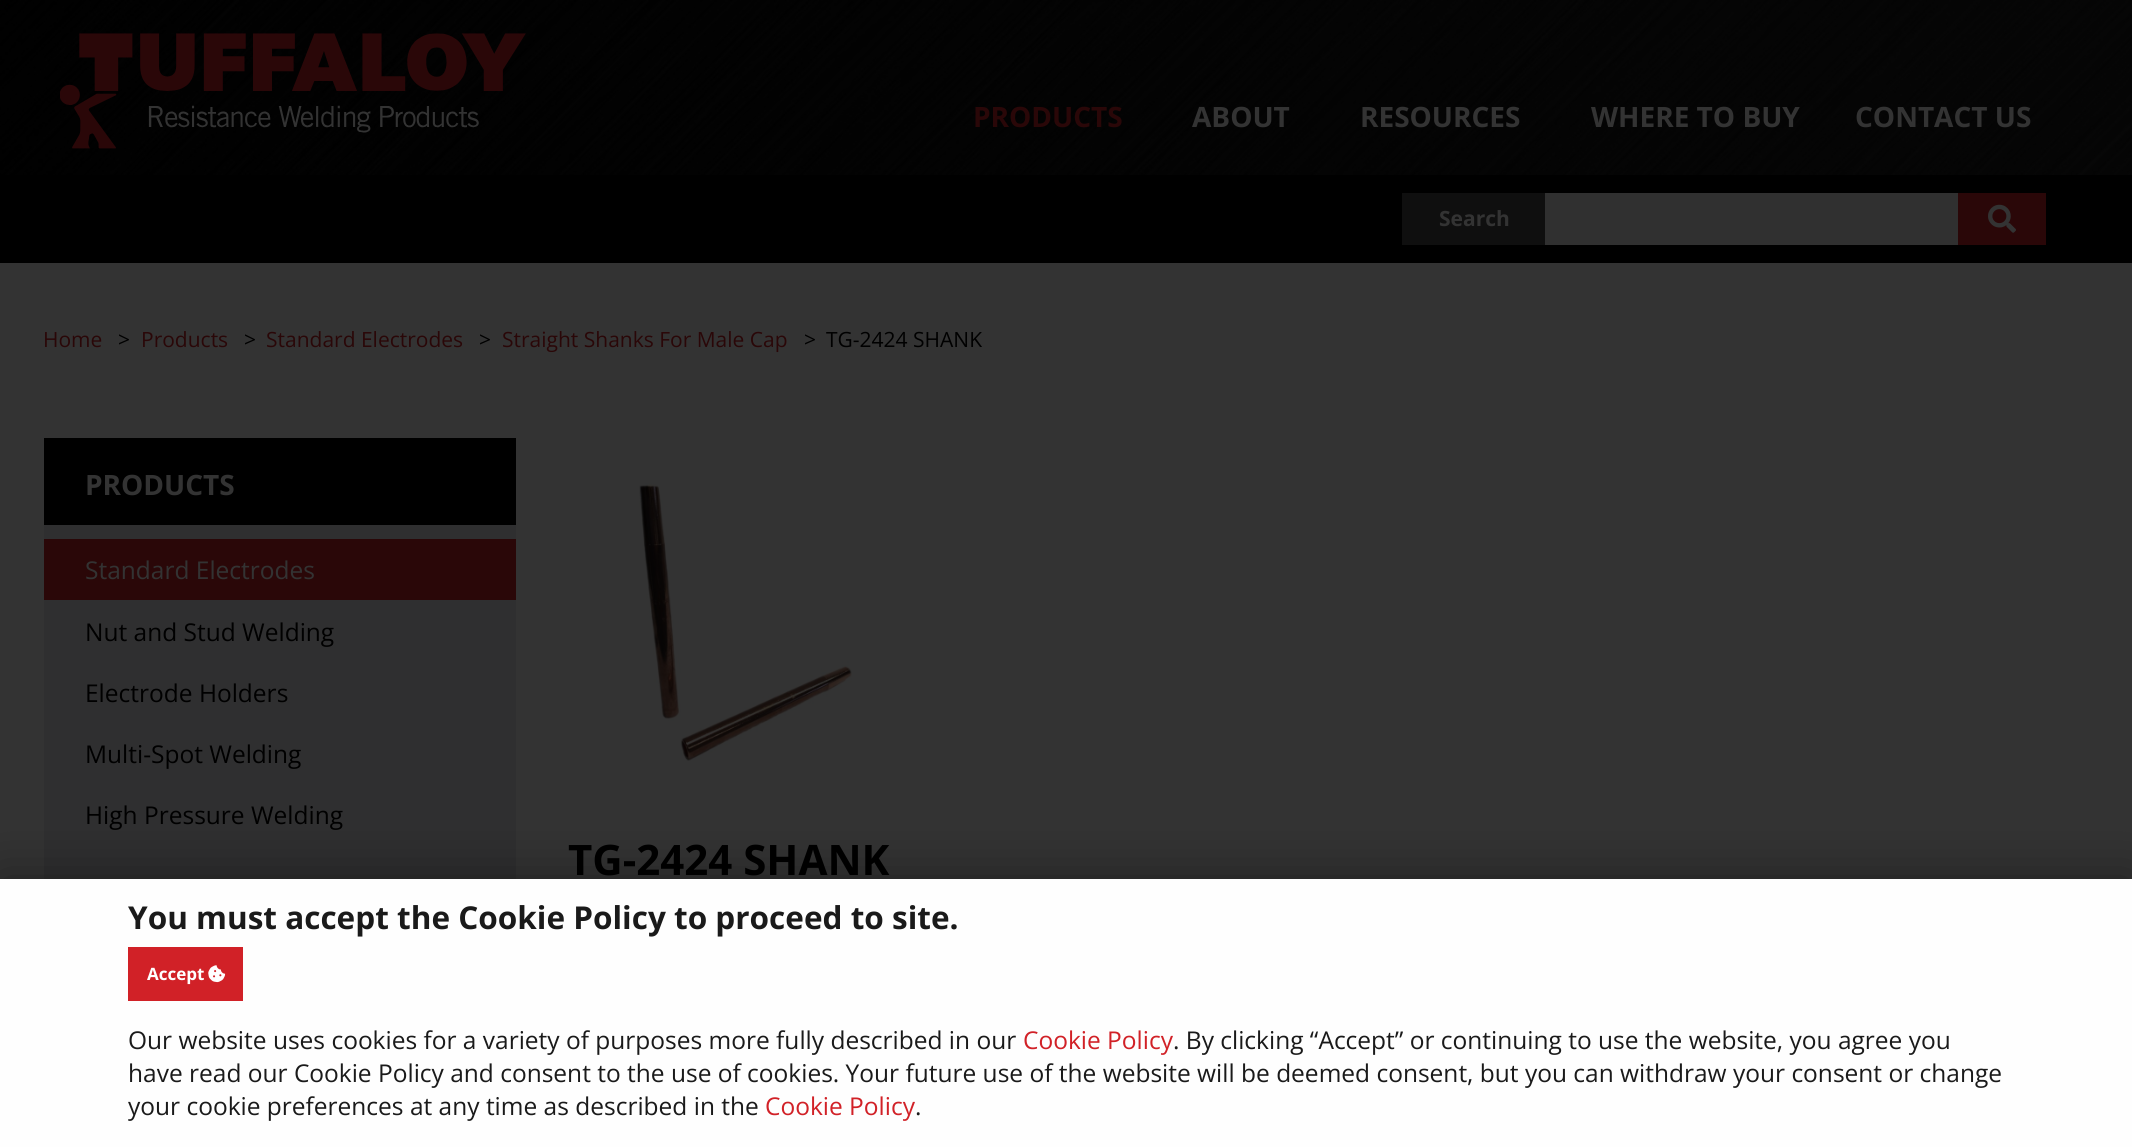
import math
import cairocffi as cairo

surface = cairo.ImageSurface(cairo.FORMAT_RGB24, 2132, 1147)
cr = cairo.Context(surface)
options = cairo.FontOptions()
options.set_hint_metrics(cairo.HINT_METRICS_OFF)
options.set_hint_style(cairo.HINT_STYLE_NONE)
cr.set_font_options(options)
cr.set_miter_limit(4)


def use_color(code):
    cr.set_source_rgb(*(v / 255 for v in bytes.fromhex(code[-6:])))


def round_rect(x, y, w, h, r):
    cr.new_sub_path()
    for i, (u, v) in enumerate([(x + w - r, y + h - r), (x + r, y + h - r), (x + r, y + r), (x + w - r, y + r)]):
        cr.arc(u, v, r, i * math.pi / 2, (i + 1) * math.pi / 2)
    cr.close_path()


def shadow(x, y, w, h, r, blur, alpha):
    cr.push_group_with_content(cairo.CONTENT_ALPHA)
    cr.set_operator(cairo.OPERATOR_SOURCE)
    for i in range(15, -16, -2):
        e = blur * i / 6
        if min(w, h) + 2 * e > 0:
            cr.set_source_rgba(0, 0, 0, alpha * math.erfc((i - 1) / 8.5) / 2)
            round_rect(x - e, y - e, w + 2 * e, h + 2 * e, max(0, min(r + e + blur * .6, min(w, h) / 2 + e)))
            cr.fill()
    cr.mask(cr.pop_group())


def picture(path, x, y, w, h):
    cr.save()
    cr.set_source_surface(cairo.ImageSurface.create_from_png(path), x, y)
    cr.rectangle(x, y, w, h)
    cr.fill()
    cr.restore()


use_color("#333333")
cr.paint()
picture("img1.png", 0, 0, 2132, 175)
picture("img2.png", 60, 33, 466, 116)
cr.select_font_face("Open Sans", cairo.FONT_SLANT_NORMAL, cairo.FONT_WEIGHT_BOLD)
cr.set_font_size(28)
use_color("#2a0708")
cr.move_to(973, 127)
cr.show_text("PRODUCTS")
use_color("#333333")
cr.move_to(1192, 127)
cr.show_text("ABOUT")
cr.move_to(1360, 127)
cr.show_text("RESOURCES")
cr.move_to(1591, 127)
cr.show_text("WHERE TO BUY")
cr.move_to(1855, 127)
cr.show_text("CONTACT US")
use_color("#000000")
cr.rectangle(0, 175, 2132, 88)
cr.fill()
use_color("#0f0f0f")
cr.rectangle(1402, 193, 143, 52)
cr.fill()
cr.set_font_size(21)
use_color("#333333")
cr.move_to(1439, 226)
cr.show_text("Search")
use_color("#303030")
cr.rectangle(1545, 193, 413, 52)
cr.fill()
use_color("#2a0708")
cr.rectangle(1958, 193, 88, 52)
cr.fill()
picture("img3.png", 1988, 204, 28, 29)
cr.select_font_face("Open Sans")
cr.move_to(43, 347)
cr.show_text("Home")
use_color("#000000")
cr.move_to(118, 347)
cr.show_text(">")
use_color("#2a0708")
cr.move_to(141, 347)
cr.show_text("Products")
use_color("#000000")
cr.move_to(244, 347)
cr.show_text(">")
use_color("#2a0708")
cr.move_to(266, 347)
cr.show_text("Standard Electrodes")
use_color("#000000")
cr.move_to(479, 347)
cr.show_text(">")
use_color("#2a0708")
cr.move_to(502, 347)
cr.show_text("Straight Shanks For Male Cap")
use_color("#000000")
cr.move_to(804, 347)
cr.show_text(">")
cr.move_to(826, 347)
cr.show_text("TG-2424 SHANK")
use_color("#2f2f30")
cr.rectangle(44, 525, 472, 354)
cr.fill()
use_color("#000000")
cr.rectangle(44, 438, 472, 87)
cr.fill()
cr.select_font_face("Open Sans", cairo.FONT_SLANT_NORMAL, cairo.FONT_WEIGHT_BOLD)
cr.set_font_size(28)
use_color("#333333")
cr.move_to(85, 495)
cr.show_text("PRODUCTS")
use_color("#2a0708")
cr.rectangle(44, 539, 472, 61)
cr.fill()
cr.select_font_face("Open Sans")
cr.set_font_size(24.5)
use_color("#333333")
cr.move_to(85, 579)
cr.show_text("Standard Electrodes")
use_color("#000000")
cr.move_to(85, 641)
cr.show_text("Nut and Stud Welding")
cr.move_to(85, 702)
cr.show_text("Electrode Holders")
cr.move_to(85, 763)
cr.show_text("Multi-Spot Welding")
cr.move_to(85, 824)
cr.show_text("High Pressure Welding")
picture("img4.png", 639, 483, 213, 278)
cr.select_font_face("Open Sans", cairo.FONT_SLANT_NORMAL, cairo.FONT_WEIGHT_BOLD)
cr.set_font_size(42)
cr.move_to(568, 875)
cr.show_text("TG-2424 SHANK")
use_color("#000000")
shadow(0, 879, 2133, 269, 0, 26, 0.4)
use_color("#fefefe")
cr.rectangle(0, 879, 2132, 268)
cr.fill()
cr.set_font_size(31.5)
use_color("#1a1a1a")
cr.move_to(128, 929)
cr.show_text("You must accept the Cookie Policy to proceed to site.")
use_color("#d12127")
cr.rectangle(128, 947, 115, 54)
cr.fill()
cr.set_font_size(17)
use_color("#ffffff")
cr.move_to(147, 980)
cr.show_text("Accept")
picture("img5.png", 208, 965, 18, 18)
cr.select_font_face("Open Sans")
cr.set_font_size(24.5)
use_color("#1a1a1a")
cr.move_to(128, 1049)
cr.show_text("Our website uses cookies for a variety of purposes more fully described in our")
use_color("#d12127")
cr.move_to(1023, 1049)
cr.show_text("Cookie Policy")
use_color("#1a1a1a")
cr.move_to(1173, 1049)
cr.show_text(". By clicking “Accept” or continuing to use the website, you agree you")
cr.move_to(128, 1082)
cr.show_text("have read our Cookie Policy and consent to the use of cookies. Your future use of the website will be deemed consent, but you can withdraw your consent or change")
cr.move_to(128, 1115)
cr.show_text("your cookie preferences at any time as described in the")
use_color("#d12127")
cr.move_to(765, 1115)
cr.show_text("Cookie Policy")
use_color("#1a1a1a")
cr.move_to(915, 1115)
cr.show_text(".")
surface.write_to_png("result.png")
